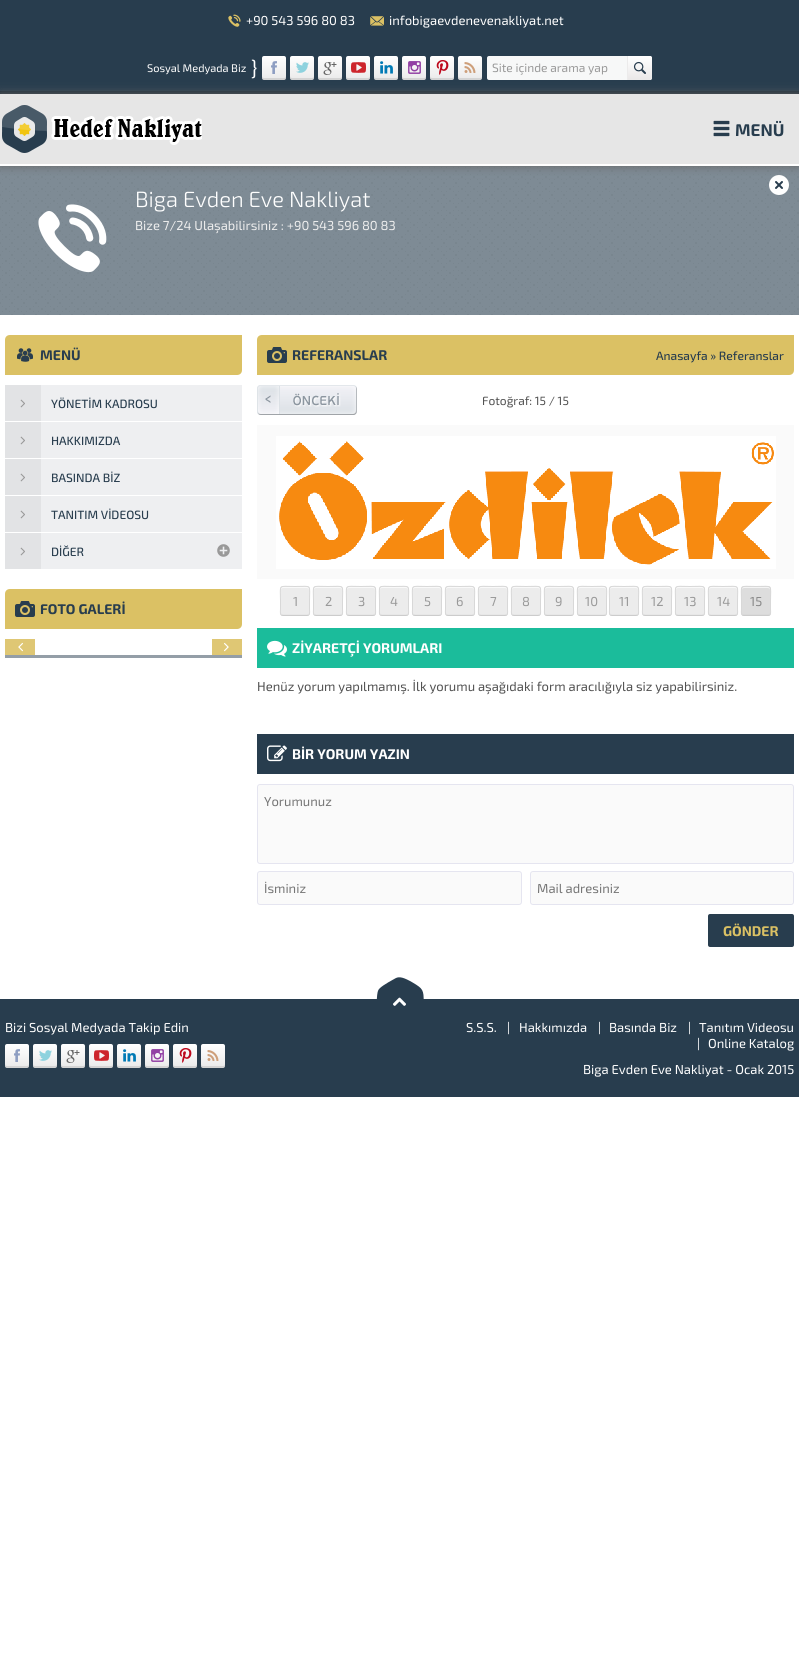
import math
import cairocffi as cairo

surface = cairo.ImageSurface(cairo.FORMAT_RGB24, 799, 1666)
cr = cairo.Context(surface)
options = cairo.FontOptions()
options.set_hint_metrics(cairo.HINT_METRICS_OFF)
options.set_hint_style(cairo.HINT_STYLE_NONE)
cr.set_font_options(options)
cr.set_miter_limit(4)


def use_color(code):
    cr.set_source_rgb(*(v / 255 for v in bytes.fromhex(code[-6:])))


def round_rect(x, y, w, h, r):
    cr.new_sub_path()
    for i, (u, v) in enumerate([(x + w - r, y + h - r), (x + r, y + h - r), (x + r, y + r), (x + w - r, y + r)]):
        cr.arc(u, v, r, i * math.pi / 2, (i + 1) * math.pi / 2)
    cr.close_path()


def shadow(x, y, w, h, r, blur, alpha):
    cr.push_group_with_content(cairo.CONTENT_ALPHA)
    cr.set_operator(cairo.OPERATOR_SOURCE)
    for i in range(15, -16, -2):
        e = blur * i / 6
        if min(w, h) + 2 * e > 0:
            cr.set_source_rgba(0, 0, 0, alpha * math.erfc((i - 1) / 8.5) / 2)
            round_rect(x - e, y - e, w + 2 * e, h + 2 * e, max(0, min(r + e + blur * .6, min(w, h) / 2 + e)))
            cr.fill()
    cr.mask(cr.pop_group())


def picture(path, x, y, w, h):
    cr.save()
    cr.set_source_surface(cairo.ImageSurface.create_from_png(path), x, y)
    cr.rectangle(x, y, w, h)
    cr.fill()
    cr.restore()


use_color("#ffffff")
cr.paint()
use_color("#e6e6e6")
cr.rectangle(0, 94, 799, 70)
cr.fill()
use_color("#283d4e")
cr.rectangle(0, 0, 799, 91)
cr.fill()
use_color("#1e2e3b")
cr.rectangle(0, 91, 799, 3)
cr.fill()
picture("img1.png", 228, 14, 13, 13)
cr.select_font_face("Exo 2")
cr.set_font_size(13)
use_color("#ffffff")
cr.move_to(246, 25)
cr.show_text("+90 543 596 80 83")
picture("img2.png", 370, 16, 14, 10)
cr.move_to(389, 25)
cr.show_text("infobigaevdenevenakliyat.net")
cr.set_font_size(11)
cr.move_to(147, 72)
cr.show_text("Sosyal Medyada Biz")
cr.set_font_size(20)
cr.move_to(251, 75)
cr.show_text("}")
gradient = cairo.LinearGradient(274, 80, 274, 56)
gradient.add_color_stop_rgba(0, 0.918, 0.918, 0.918, 1)
gradient.add_color_stop_rgba(1, 1, 1, 1, 1)
cr.set_source(gradient)
round_rect(262, 56, 24, 24, 2)
cr.fill()
cr.set_source_rgba(0, 0, 0, 0.1)
cr.new_path()
cr.move_to(262, 76)
cr.curve_to(262, 80.5, 263, 80, 267.5, 80)
cr.line_to(280.5, 80)
cr.curve_to(285, 80, 286, 80.5, 286, 76)
cr.curve_to(286, 77, 285, 78, 284, 78)
cr.line_to(264, 78)
cr.curve_to(263, 78, 262, 77, 262, 76)
cr.close_path()
cr.fill()
picture("img3.png", 271, 61, 6, 13)
gradient = cairo.LinearGradient(302, 80, 302, 56)
gradient.add_color_stop_rgba(0, 0.918, 0.918, 0.918, 1)
gradient.add_color_stop_rgba(1, 1, 1, 1, 1)
cr.set_source(gradient)
round_rect(290, 56, 24, 24, 2)
cr.fill()
cr.set_source_rgba(0, 0, 0, 0.1)
cr.new_path()
cr.move_to(290, 76)
cr.curve_to(290, 80.5, 291, 80, 295.5, 80)
cr.line_to(308.5, 80)
cr.curve_to(313, 80, 314, 80.5, 314, 76)
cr.curve_to(314, 77, 313, 78, 312, 78)
cr.line_to(292, 78)
cr.curve_to(291, 78, 290, 77, 290, 76)
cr.close_path()
cr.fill()
picture("img4.png", 296, 62, 13, 11)
gradient = cairo.LinearGradient(330, 80, 330, 56)
gradient.add_color_stop_rgba(0, 0.918, 0.918, 0.918, 1)
gradient.add_color_stop_rgba(1, 1, 1, 1, 1)
cr.set_source(gradient)
round_rect(318, 56, 24, 24, 2)
cr.fill()
cr.set_source_rgba(0, 0, 0, 0.1)
cr.new_path()
cr.move_to(318, 76)
cr.curve_to(318, 80.5, 319, 80, 323.5, 80)
cr.line_to(336.5, 80)
cr.curve_to(341, 80, 342, 80.5, 342, 76)
cr.curve_to(342, 77, 341, 78, 340, 78)
cr.line_to(320, 78)
cr.curve_to(319, 78, 318, 77, 318, 76)
cr.close_path()
cr.fill()
picture("img5.png", 323, 62, 14, 13)
gradient = cairo.LinearGradient(358, 80, 358, 56)
gradient.add_color_stop_rgba(0, 0.918, 0.918, 0.918, 1)
gradient.add_color_stop_rgba(1, 1, 1, 1, 1)
cr.set_source(gradient)
round_rect(346, 56, 24, 24, 2)
cr.fill()
cr.set_source_rgba(0, 0, 0, 0.1)
cr.new_path()
cr.move_to(346, 76)
cr.curve_to(346, 80.5, 347, 80, 351.5, 80)
cr.line_to(364.5, 80)
cr.curve_to(369, 80, 370, 80.5, 370, 76)
cr.curve_to(370, 77, 369, 78, 368, 78)
cr.line_to(348, 78)
cr.curve_to(347, 78, 346, 77, 346, 76)
cr.close_path()
cr.fill()
picture("img6.png", 351, 62, 15, 11)
gradient = cairo.LinearGradient(386, 80, 386, 56)
gradient.add_color_stop_rgba(0, 0.918, 0.918, 0.918, 1)
gradient.add_color_stop_rgba(1, 1, 1, 1, 1)
cr.set_source(gradient)
round_rect(374, 56, 24, 24, 2)
cr.fill()
cr.set_source_rgba(0, 0, 0, 0.1)
cr.new_path()
cr.move_to(374, 76)
cr.curve_to(374, 80.5, 375, 80, 379.5, 80)
cr.line_to(392.5, 80)
cr.curve_to(397, 80, 398, 80.5, 398, 76)
cr.curve_to(398, 77, 397, 78, 396, 78)
cr.line_to(376, 78)
cr.curve_to(375, 78, 374, 77, 374, 76)
cr.close_path()
cr.fill()
picture("img7.png", 380, 61, 13, 13)
gradient = cairo.LinearGradient(414, 80, 414, 56)
gradient.add_color_stop_rgba(0, 0.918, 0.918, 0.918, 1)
gradient.add_color_stop_rgba(1, 1, 1, 1, 1)
cr.set_source(gradient)
round_rect(402, 56, 24, 24, 2)
cr.fill()
cr.set_source_rgba(0, 0, 0, 0.1)
cr.new_path()
cr.move_to(402, 76)
cr.curve_to(402, 80.5, 403, 80, 407.5, 80)
cr.line_to(420.5, 80)
cr.curve_to(425, 80, 426, 80.5, 426, 76)
cr.curve_to(426, 77, 425, 78, 424, 78)
cr.line_to(404, 78)
cr.curve_to(403, 78, 402, 77, 402, 76)
cr.close_path()
cr.fill()
picture("img8.png", 408, 61, 13, 13)
gradient = cairo.LinearGradient(442, 80, 442, 56)
gradient.add_color_stop_rgba(0, 0.918, 0.918, 0.918, 1)
gradient.add_color_stop_rgba(1, 1, 1, 1, 1)
cr.set_source(gradient)
round_rect(430, 56, 24, 24, 2)
cr.fill()
cr.set_source_rgba(0, 0, 0, 0.1)
cr.new_path()
cr.move_to(430, 76)
cr.curve_to(430, 80.5, 431, 80, 435.5, 80)
cr.line_to(448.5, 80)
cr.curve_to(453, 80, 454, 80.5, 454, 76)
cr.curve_to(454, 77, 453, 78, 452, 78)
cr.line_to(432, 78)
cr.curve_to(431, 78, 430, 77, 430, 76)
cr.close_path()
cr.fill()
picture("img9.png", 436, 60, 13, 15)
gradient = cairo.LinearGradient(470, 80, 470, 56)
gradient.add_color_stop_rgba(0, 0.918, 0.918, 0.918, 1)
gradient.add_color_stop_rgba(1, 1, 1, 1, 1)
cr.set_source(gradient)
round_rect(458, 56, 24, 24, 2)
cr.fill()
cr.set_source_rgba(0, 0, 0, 0.1)
cr.new_path()
cr.move_to(458, 76)
cr.curve_to(458, 80.5, 459, 80, 463.5, 80)
cr.line_to(476.5, 80)
cr.curve_to(481, 80, 482, 80.5, 482, 76)
cr.curve_to(482, 77, 481, 78, 480, 78)
cr.line_to(460, 78)
cr.curve_to(459, 78, 458, 77, 458, 76)
cr.close_path()
cr.fill()
picture("img10.png", 464, 62, 12, 11)
use_color("#f7f8f8")
round_rect(487, 56, 165, 24, 2)
cr.fill()
cr.set_font_size(12)
use_color("#999999")
cr.move_to(492, 72)
cr.show_text("Site içinde arama yap")
gradient = cairo.LinearGradient(640, 56, 640, 80)
gradient.add_color_stop_rgba(0, 1, 1, 1, 1)
gradient.add_color_stop_rgba(1, 0.918, 0.91, 0.91, 1)
cr.set_source(gradient)
cr.new_path()
cr.move_to(627, 56)
cr.line_to(650, 56)
cr.curve_to(651, 56, 652, 57, 652, 58)
cr.line_to(652, 78)
cr.curve_to(652, 79, 651, 80, 650, 80)
cr.line_to(627, 80)
cr.close_path()
cr.fill()
use_color("#ecebeb")
cr.rectangle(627, 56, 1, 24)
cr.fill()
picture("img11.png", 633, 61, 13, 13)
use_color("#7e8b95")
cr.rectangle(0, 166, 799, 149)
cr.fill()
picture("img15.png", 0, 167, 799, 148)
use_color("#ffffff")
cr.arc(779, 185, 10, 0, 2 * math.pi)
cr.fill()
picture("img14.png", 775, 181, 8, 8)
cr.save()
cr.set_fill_rule(cairo.FILL_RULE_EVEN_ODD)
cr.new_path()
cr.move_to(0, 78)
cr.line_to(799, 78)
cr.line_to(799, 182)
cr.line_to(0, 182)
cr.close_path()
cr.move_to(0, 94)
cr.line_to(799, 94)
cr.line_to(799, 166)
cr.line_to(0, 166)
cr.close_path()
cr.clip()
use_color("#666666")
shadow(0, 94, 799, 72, 0, 5, 1)
cr.restore()
picture("img12.png", 2, 105, 200, 48)
picture("img13.png", 713, 120, 17, 17)
cr.select_font_face("Exo 2", cairo.FONT_SLANT_NORMAL, cairo.FONT_WEIGHT_BOLD)
cr.set_font_size(17)
use_color("#283d4e")
cr.move_to(735, 136)
cr.show_text("MENÜ")
cr.select_font_face("Exo 2 Light")
cr.set_font_size(22)
use_color("#ffffff")
cr.move_to(135, 207)
cr.show_text("Biga Evden Eve Nakliyat")
picture("img16.png", 38, 204, 69, 69)
cr.select_font_face("Exo 2")
cr.set_font_size(13)
use_color("#eeeeee")
cr.move_to(135, 230)
cr.show_text("Bize 7/24 Ulaşabilirsiniz : +90 543 596 80 83")
use_color("#dbc164")
cr.new_path()
cr.move_to(10, 335)
cr.line_to(242, 335)
cr.line_to(242, 370)
cr.curve_to(242, 373, 240, 375, 237, 375)
cr.line_to(5, 375)
cr.line_to(5, 340)
cr.curve_to(5, 337, 7, 335, 10, 335)
cr.close_path()
cr.fill()
picture("img17.png", 17, 348, 16, 14)
cr.select_font_face("Exo 2", cairo.FONT_SLANT_NORMAL, cairo.FONT_WEIGHT_BOLD)
cr.set_font_size(14)
use_color("#283d4e")
cr.move_to(40, 360)
cr.show_text("MENÜ")
use_color("#eeeff1")
cr.rectangle(41, 385, 201, 36)
cr.fill()
use_color("#e2e3e5")
cr.rectangle(5, 385, 36, 36)
cr.fill()
picture("img18.png", 20, 399, 5, 9)
cr.select_font_face("Exo 2 Medium")
cr.set_font_size(12)
use_color("#283d4e")
cr.move_to(51, 408)
cr.show_text("YÖNETİM KADROSU")
use_color("#eeeff1")
cr.rectangle(41, 422, 201, 36)
cr.fill()
use_color("#e2e3e5")
cr.rectangle(5, 422, 36, 36)
cr.fill()
picture("img18.png", 20, 436, 5, 9)
use_color("#283d4e")
cr.move_to(51, 445)
cr.show_text("HAKKIMIZDA")
use_color("#eeeff1")
cr.rectangle(41, 459, 201, 36)
cr.fill()
use_color("#e2e3e5")
cr.rectangle(5, 459, 36, 36)
cr.fill()
picture("img18.png", 20, 473, 5, 9)
use_color("#283d4e")
cr.move_to(51, 482)
cr.show_text("BASINDA BİZ")
use_color("#eeeff1")
cr.rectangle(41, 496, 201, 36)
cr.fill()
use_color("#e2e3e5")
cr.rectangle(5, 496, 36, 36)
cr.fill()
picture("img18.png", 20, 510, 5, 9)
use_color("#283d4e")
cr.move_to(51, 519)
cr.show_text("TANITIM VİDEOSU")
use_color("#eeeff1")
cr.rectangle(41, 533, 201, 36)
cr.fill()
picture("img19.png", 217, 544, 13, 13)
use_color("#e2e3e5")
cr.rectangle(5, 533, 36, 36)
cr.fill()
picture("img18.png", 20, 547, 5, 9)
use_color("#283d4e")
cr.move_to(51, 556)
cr.show_text("DİĞER")
use_color("#dbc164")
cr.new_path()
cr.move_to(10, 589)
cr.line_to(242, 589)
cr.line_to(242, 624)
cr.curve_to(242, 627, 240, 629, 237, 629)
cr.line_to(5, 629)
cr.line_to(5, 594)
cr.curve_to(5, 591, 7, 589, 10, 589)
cr.close_path()
cr.fill()
picture("img20.png", 15, 601, 20, 16)
cr.select_font_face("Exo 2", cairo.FONT_SLANT_NORMAL, cairo.FONT_WEIGHT_BOLD)
cr.set_font_size(14)
use_color("#283d4e")
cr.move_to(40, 614)
cr.show_text("FOTO GALERİ")
use_color("#949ea7")
cr.rectangle(5, 655, 237, 3)
cr.fill()
use_color("#dfc774")
cr.rectangle(5, 639, 30, 16)
cr.fill()
picture("img21.png", 18, 642, 5, 10)
cr.rectangle(212, 639, 30, 16)
cr.fill()
picture("img22.png", 224, 642, 5, 10)
use_color("#dbc164")
cr.new_path()
cr.move_to(262, 335)
cr.line_to(794, 335)
cr.line_to(794, 370)
cr.curve_to(794, 373, 792, 375, 789, 375)
cr.line_to(257, 375)
cr.line_to(257, 340)
cr.curve_to(257, 337, 259, 335, 262, 335)
cr.close_path()
cr.fill()
picture("img20.png", 267, 347, 20, 16)
use_color("#283d4e")
cr.move_to(292, 360)
cr.show_text("REFERANSLAR")
cr.select_font_face("Exo 2 Medium")
cr.set_font_size(12)
cr.move_to(656, 360)
cr.show_text("Anasayfa » Referanslar")
picture("img23.png", 257, 385, 100, 30)
cr.select_font_face("Exo 2")
use_color("#515151")
cr.move_to(482, 405)
cr.show_text("Fotoğraf: 15 / 15")
use_color("#fafafa")
cr.rectangle(257, 425, 537, 154)
cr.fill()
picture("img24.png", 276, 436, 500, 133)
use_color("#ececec")
round_rect(280, 586, 30, 30, 3)
cr.fill()
use_color("#e7e7e7")
cr.new_path()
cr.move_to(281, 612)
cr.curve_to(281, 616, 283.5, 615, 287, 615)
cr.line_to(303, 615)
cr.curve_to(306.5, 615, 309, 616, 309, 612)
cr.curve_to(309, 613, 308, 614, 307, 614)
cr.line_to(283, 614)
cr.curve_to(282, 614, 281, 613, 281, 612)
cr.close_path()
cr.fill()
use_color("#f9f9f9")
cr.new_path()
cr.move_to(283, 588)
cr.line_to(307, 588)
cr.curve_to(308, 588, 309, 589, 309, 590)
cr.curve_to(309, 586, 306.5, 587, 303, 587)
cr.line_to(287, 587)
cr.curve_to(283.5, 587, 281, 586, 281, 590)
cr.curve_to(281, 589, 282, 588, 283, 588)
cr.close_path()
cr.fill()
cr.new_path()
cr.move_to(309, 615)
cr.curve_to(308.5, 615, 307.5, 615.5, 307, 615.5)
cr.line_to(283, 615.5)
cr.curve_to(282.5, 615.5, 281.5, 615, 281, 615)
use_color("#cccccc")
cr.set_line_width(1)
cr.stroke()
cr.new_path()
cr.move_to(281, 615)
cr.curve_to(280, 613.5, 280.5, 610.5, 280.5, 609)
cr.line_to(280.5, 601)
cr.curve_to(280.5, 583.5, 277.5, 586.5, 295, 586.5)
cr.curve_to(312.5, 586.5, 309.5, 583.5, 309.5, 601)
cr.line_to(309.5, 609)
cr.curve_to(309.5, 610.5, 310, 613.5, 309, 615)
use_color("#d8d8d8")
cr.stroke()
cr.set_font_size(13)
use_color("#999999")
cr.move_to(293, 606)
cr.show_text("1")
use_color("#ececec")
round_rect(313, 586, 30, 30, 3)
cr.fill()
use_color("#e7e7e7")
cr.new_path()
cr.move_to(314, 612)
cr.curve_to(314, 616, 316.5, 615, 320, 615)
cr.line_to(336, 615)
cr.curve_to(339.5, 615, 342, 616, 342, 612)
cr.curve_to(342, 613, 341, 614, 340, 614)
cr.line_to(316, 614)
cr.curve_to(315, 614, 314, 613, 314, 612)
cr.close_path()
cr.fill()
use_color("#f9f9f9")
cr.new_path()
cr.move_to(316, 588)
cr.line_to(340, 588)
cr.curve_to(341, 588, 342, 589, 342, 590)
cr.curve_to(342, 586, 339.5, 587, 336, 587)
cr.line_to(320, 587)
cr.curve_to(316.5, 587, 314, 586, 314, 590)
cr.curve_to(314, 589, 315, 588, 316, 588)
cr.close_path()
cr.fill()
cr.new_path()
cr.move_to(342, 615)
cr.curve_to(341.5, 615, 340.5, 615.5, 340, 615.5)
cr.line_to(316, 615.5)
cr.curve_to(315.5, 615.5, 314.5, 615, 314, 615)
use_color("#cccccc")
cr.stroke()
cr.new_path()
cr.move_to(314, 615)
cr.curve_to(313, 613.5, 313.5, 610.5, 313.5, 609)
cr.line_to(313.5, 601)
cr.curve_to(313.5, 583.5, 310.5, 586.5, 328, 586.5)
cr.curve_to(345.5, 586.5, 342.5, 583.5, 342.5, 601)
cr.line_to(342.5, 609)
cr.curve_to(342.5, 610.5, 343, 613.5, 342, 615)
use_color("#d8d8d8")
cr.stroke()
use_color("#999999")
cr.move_to(325, 606)
cr.show_text("2")
use_color("#ececec")
round_rect(346, 586, 30, 30, 3)
cr.fill()
use_color("#e7e7e7")
cr.new_path()
cr.move_to(347, 612)
cr.curve_to(347, 616, 349.5, 615, 353, 615)
cr.line_to(369, 615)
cr.curve_to(372.5, 615, 375, 616, 375, 612)
cr.curve_to(375, 613, 374, 614, 373, 614)
cr.line_to(349, 614)
cr.curve_to(348, 614, 347, 613, 347, 612)
cr.close_path()
cr.fill()
use_color("#f9f9f9")
cr.new_path()
cr.move_to(349, 588)
cr.line_to(373, 588)
cr.curve_to(374, 588, 375, 589, 375, 590)
cr.curve_to(375, 586, 372.5, 587, 369, 587)
cr.line_to(353, 587)
cr.curve_to(349.5, 587, 347, 586, 347, 590)
cr.curve_to(347, 589, 348, 588, 349, 588)
cr.close_path()
cr.fill()
cr.new_path()
cr.move_to(375, 615)
cr.curve_to(374.5, 615, 373.5, 615.5, 373, 615.5)
cr.line_to(349, 615.5)
cr.curve_to(348.5, 615.5, 347.5, 615, 347, 615)
use_color("#cccccc")
cr.stroke()
cr.new_path()
cr.move_to(347, 615)
cr.curve_to(346, 613.5, 346.5, 610.5, 346.5, 609)
cr.line_to(346.5, 601)
cr.curve_to(346.5, 583.5, 343.5, 586.5, 361, 586.5)
cr.curve_to(378.5, 586.5, 375.5, 583.5, 375.5, 601)
cr.line_to(375.5, 609)
cr.curve_to(375.5, 610.5, 376, 613.5, 375, 615)
use_color("#d8d8d8")
cr.stroke()
use_color("#999999")
cr.move_to(358, 606)
cr.show_text("3")
use_color("#ececec")
round_rect(379, 586, 30, 30, 3)
cr.fill()
use_color("#e7e7e7")
cr.new_path()
cr.move_to(380, 612)
cr.curve_to(380, 616, 382.5, 615, 386, 615)
cr.line_to(402, 615)
cr.curve_to(405.5, 615, 408, 616, 408, 612)
cr.curve_to(408, 613, 407, 614, 406, 614)
cr.line_to(382, 614)
cr.curve_to(381, 614, 380, 613, 380, 612)
cr.close_path()
cr.fill()
use_color("#f9f9f9")
cr.new_path()
cr.move_to(382, 588)
cr.line_to(406, 588)
cr.curve_to(407, 588, 408, 589, 408, 590)
cr.curve_to(408, 586, 405.5, 587, 402, 587)
cr.line_to(386, 587)
cr.curve_to(382.5, 587, 380, 586, 380, 590)
cr.curve_to(380, 589, 381, 588, 382, 588)
cr.close_path()
cr.fill()
cr.new_path()
cr.move_to(408, 615)
cr.curve_to(407.5, 615, 406.5, 615.5, 406, 615.5)
cr.line_to(382, 615.5)
cr.curve_to(381.5, 615.5, 380.5, 615, 380, 615)
use_color("#cccccc")
cr.stroke()
cr.new_path()
cr.move_to(380, 615)
cr.curve_to(379, 613.5, 379.5, 610.5, 379.5, 609)
cr.line_to(379.5, 601)
cr.curve_to(379.5, 583.5, 376.5, 586.5, 394, 586.5)
cr.curve_to(411.5, 586.5, 408.5, 583.5, 408.5, 601)
cr.line_to(408.5, 609)
cr.curve_to(408.5, 610.5, 409, 613.5, 408, 615)
use_color("#d8d8d8")
cr.stroke()
use_color("#999999")
cr.move_to(390, 606)
cr.show_text("4")
use_color("#ececec")
round_rect(412, 586, 30, 30, 3)
cr.fill()
use_color("#e7e7e7")
cr.new_path()
cr.move_to(413, 612)
cr.curve_to(413, 616, 415.5, 615, 419, 615)
cr.line_to(435, 615)
cr.curve_to(438.5, 615, 441, 616, 441, 612)
cr.curve_to(441, 613, 440, 614, 439, 614)
cr.line_to(415, 614)
cr.curve_to(414, 614, 413, 613, 413, 612)
cr.close_path()
cr.fill()
use_color("#f9f9f9")
cr.new_path()
cr.move_to(415, 588)
cr.line_to(439, 588)
cr.curve_to(440, 588, 441, 589, 441, 590)
cr.curve_to(441, 586, 438.5, 587, 435, 587)
cr.line_to(419, 587)
cr.curve_to(415.5, 587, 413, 586, 413, 590)
cr.curve_to(413, 589, 414, 588, 415, 588)
cr.close_path()
cr.fill()
cr.new_path()
cr.move_to(441, 615)
cr.curve_to(440.5, 615, 439.5, 615.5, 439, 615.5)
cr.line_to(415, 615.5)
cr.curve_to(414.5, 615.5, 413.5, 615, 413, 615)
use_color("#cccccc")
cr.stroke()
cr.new_path()
cr.move_to(413, 615)
cr.curve_to(412, 613.5, 412.5, 610.5, 412.5, 609)
cr.line_to(412.5, 601)
cr.curve_to(412.5, 583.5, 409.5, 586.5, 427, 586.5)
cr.curve_to(444.5, 586.5, 441.5, 583.5, 441.5, 601)
cr.line_to(441.5, 609)
cr.curve_to(441.5, 610.5, 442, 613.5, 441, 615)
use_color("#d8d8d8")
cr.stroke()
use_color("#999999")
cr.move_to(424, 606)
cr.show_text("5")
use_color("#ececec")
round_rect(445, 586, 30, 30, 3)
cr.fill()
use_color("#e7e7e7")
cr.new_path()
cr.move_to(446, 612)
cr.curve_to(446, 616, 448.5, 615, 452, 615)
cr.line_to(468, 615)
cr.curve_to(471.5, 615, 474, 616, 474, 612)
cr.curve_to(474, 613, 473, 614, 472, 614)
cr.line_to(448, 614)
cr.curve_to(447, 614, 446, 613, 446, 612)
cr.close_path()
cr.fill()
use_color("#f9f9f9")
cr.new_path()
cr.move_to(448, 588)
cr.line_to(472, 588)
cr.curve_to(473, 588, 474, 589, 474, 590)
cr.curve_to(474, 586, 471.5, 587, 468, 587)
cr.line_to(452, 587)
cr.curve_to(448.5, 587, 446, 586, 446, 590)
cr.curve_to(446, 589, 447, 588, 448, 588)
cr.close_path()
cr.fill()
cr.new_path()
cr.move_to(474, 615)
cr.curve_to(473.5, 615, 472.5, 615.5, 472, 615.5)
cr.line_to(448, 615.5)
cr.curve_to(447.5, 615.5, 446.5, 615, 446, 615)
use_color("#cccccc")
cr.stroke()
cr.new_path()
cr.move_to(446, 615)
cr.curve_to(445, 613.5, 445.5, 610.5, 445.5, 609)
cr.line_to(445.5, 601)
cr.curve_to(445.5, 583.5, 442.5, 586.5, 460, 586.5)
cr.curve_to(477.5, 586.5, 474.5, 583.5, 474.5, 601)
cr.line_to(474.5, 609)
cr.curve_to(474.5, 610.5, 475, 613.5, 474, 615)
use_color("#d8d8d8")
cr.stroke()
use_color("#999999")
cr.move_to(456, 606)
cr.show_text("6")
use_color("#ececec")
round_rect(478, 586, 30, 30, 3)
cr.fill()
use_color("#e7e7e7")
cr.new_path()
cr.move_to(479, 612)
cr.curve_to(479, 616, 481.5, 615, 485, 615)
cr.line_to(501, 615)
cr.curve_to(504.5, 615, 507, 616, 507, 612)
cr.curve_to(507, 613, 506, 614, 505, 614)
cr.line_to(481, 614)
cr.curve_to(480, 614, 479, 613, 479, 612)
cr.close_path()
cr.fill()
use_color("#f9f9f9")
cr.new_path()
cr.move_to(481, 588)
cr.line_to(505, 588)
cr.curve_to(506, 588, 507, 589, 507, 590)
cr.curve_to(507, 586, 504.5, 587, 501, 587)
cr.line_to(485, 587)
cr.curve_to(481.5, 587, 479, 586, 479, 590)
cr.curve_to(479, 589, 480, 588, 481, 588)
cr.close_path()
cr.fill()
cr.new_path()
cr.move_to(507, 615)
cr.curve_to(506.5, 615, 505.5, 615.5, 505, 615.5)
cr.line_to(481, 615.5)
cr.curve_to(480.5, 615.5, 479.5, 615, 479, 615)
use_color("#cccccc")
cr.stroke()
cr.new_path()
cr.move_to(479, 615)
cr.curve_to(478, 613.5, 478.5, 610.5, 478.5, 609)
cr.line_to(478.5, 601)
cr.curve_to(478.5, 583.5, 475.5, 586.5, 493, 586.5)
cr.curve_to(510.5, 586.5, 507.5, 583.5, 507.5, 601)
cr.line_to(507.5, 609)
cr.curve_to(507.5, 610.5, 508, 613.5, 507, 615)
use_color("#d8d8d8")
cr.stroke()
use_color("#999999")
cr.move_to(490, 606)
cr.show_text("7")
use_color("#ececec")
round_rect(511, 586, 30, 30, 3)
cr.fill()
use_color("#e7e7e7")
cr.new_path()
cr.move_to(512, 612)
cr.curve_to(512, 616, 514.5, 615, 518, 615)
cr.line_to(534, 615)
cr.curve_to(537.5, 615, 540, 616, 540, 612)
cr.curve_to(540, 613, 539, 614, 538, 614)
cr.line_to(514, 614)
cr.curve_to(513, 614, 512, 613, 512, 612)
cr.close_path()
cr.fill()
use_color("#f9f9f9")
cr.new_path()
cr.move_to(514, 588)
cr.line_to(538, 588)
cr.curve_to(539, 588, 540, 589, 540, 590)
cr.curve_to(540, 586, 537.5, 587, 534, 587)
cr.line_to(518, 587)
cr.curve_to(514.5, 587, 512, 586, 512, 590)
cr.curve_to(512, 589, 513, 588, 514, 588)
cr.close_path()
cr.fill()
cr.new_path()
cr.move_to(540, 615)
cr.curve_to(539.5, 615, 538.5, 615.5, 538, 615.5)
cr.line_to(514, 615.5)
cr.curve_to(513.5, 615.5, 512.5, 615, 512, 615)
use_color("#cccccc")
cr.stroke()
cr.new_path()
cr.move_to(512, 615)
cr.curve_to(511, 613.5, 511.5, 610.5, 511.5, 609)
cr.line_to(511.5, 601)
cr.curve_to(511.5, 583.5, 508.5, 586.5, 526, 586.5)
cr.curve_to(543.5, 586.5, 540.5, 583.5, 540.5, 601)
cr.line_to(540.5, 609)
cr.curve_to(540.5, 610.5, 541, 613.5, 540, 615)
use_color("#d8d8d8")
cr.stroke()
use_color("#999999")
cr.move_to(522, 606)
cr.show_text("8")
use_color("#ececec")
round_rect(544, 586, 30, 30, 3)
cr.fill()
use_color("#e7e7e7")
cr.new_path()
cr.move_to(545, 612)
cr.curve_to(545, 616, 547.5, 615, 551, 615)
cr.line_to(567, 615)
cr.curve_to(570.5, 615, 573, 616, 573, 612)
cr.curve_to(573, 613, 572, 614, 571, 614)
cr.line_to(547, 614)
cr.curve_to(546, 614, 545, 613, 545, 612)
cr.close_path()
cr.fill()
use_color("#f9f9f9")
cr.new_path()
cr.move_to(547, 588)
cr.line_to(571, 588)
cr.curve_to(572, 588, 573, 589, 573, 590)
cr.curve_to(573, 586, 570.5, 587, 567, 587)
cr.line_to(551, 587)
cr.curve_to(547.5, 587, 545, 586, 545, 590)
cr.curve_to(545, 589, 546, 588, 547, 588)
cr.close_path()
cr.fill()
cr.new_path()
cr.move_to(573, 615)
cr.curve_to(572.5, 615, 571.5, 615.5, 571, 615.5)
cr.line_to(547, 615.5)
cr.curve_to(546.5, 615.5, 545.5, 615, 545, 615)
use_color("#cccccc")
cr.stroke()
cr.new_path()
cr.move_to(545, 615)
cr.curve_to(544, 613.5, 544.5, 610.5, 544.5, 609)
cr.line_to(544.5, 601)
cr.curve_to(544.5, 583.5, 541.5, 586.5, 559, 586.5)
cr.curve_to(576.5, 586.5, 573.5, 583.5, 573.5, 601)
cr.line_to(573.5, 609)
cr.curve_to(573.5, 610.5, 574, 613.5, 573, 615)
use_color("#d8d8d8")
cr.stroke()
use_color("#999999")
cr.move_to(555, 606)
cr.show_text("9")
use_color("#ececec")
round_rect(577, 586, 30, 30, 3)
cr.fill()
use_color("#e7e7e7")
cr.new_path()
cr.move_to(578, 612)
cr.curve_to(578, 616, 580.5, 615, 584, 615)
cr.line_to(600, 615)
cr.curve_to(603.5, 615, 606, 616, 606, 612)
cr.curve_to(606, 613, 605, 614, 604, 614)
cr.line_to(580, 614)
cr.curve_to(579, 614, 578, 613, 578, 612)
cr.close_path()
cr.fill()
use_color("#f9f9f9")
cr.new_path()
cr.move_to(580, 588)
cr.line_to(604, 588)
cr.curve_to(605, 588, 606, 589, 606, 590)
cr.curve_to(606, 586, 603.5, 587, 600, 587)
cr.line_to(584, 587)
cr.curve_to(580.5, 587, 578, 586, 578, 590)
cr.curve_to(578, 589, 579, 588, 580, 588)
cr.close_path()
cr.fill()
cr.new_path()
cr.move_to(606, 615)
cr.curve_to(605.5, 615, 604.5, 615.5, 604, 615.5)
cr.line_to(580, 615.5)
cr.curve_to(579.5, 615.5, 578.5, 615, 578, 615)
use_color("#cccccc")
cr.stroke()
cr.new_path()
cr.move_to(578, 615)
cr.curve_to(577, 613.5, 577.5, 610.5, 577.5, 609)
cr.line_to(577.5, 601)
cr.curve_to(577.5, 583.5, 574.5, 586.5, 592, 586.5)
cr.curve_to(609.5, 586.5, 606.5, 583.5, 606.5, 601)
cr.line_to(606.5, 609)
cr.curve_to(606.5, 610.5, 607, 613.5, 606, 615)
use_color("#d8d8d8")
cr.stroke()
use_color("#999999")
cr.move_to(585, 606)
cr.show_text("10")
use_color("#ececec")
round_rect(609, 586, 30, 30, 3)
cr.fill()
use_color("#e7e7e7")
cr.new_path()
cr.move_to(610, 612)
cr.curve_to(610, 616, 612.5, 615, 616, 615)
cr.line_to(632, 615)
cr.curve_to(635.5, 615, 638, 616, 638, 612)
cr.curve_to(638, 613, 637, 614, 636, 614)
cr.line_to(612, 614)
cr.curve_to(611, 614, 610, 613, 610, 612)
cr.close_path()
cr.fill()
use_color("#f9f9f9")
cr.new_path()
cr.move_to(612, 588)
cr.line_to(636, 588)
cr.curve_to(637, 588, 638, 589, 638, 590)
cr.curve_to(638, 586, 635.5, 587, 632, 587)
cr.line_to(616, 587)
cr.curve_to(612.5, 587, 610, 586, 610, 590)
cr.curve_to(610, 589, 611, 588, 612, 588)
cr.close_path()
cr.fill()
cr.new_path()
cr.move_to(638, 615)
cr.curve_to(637.5, 615, 636.5, 615.5, 636, 615.5)
cr.line_to(612, 615.5)
cr.curve_to(611.5, 615.5, 610.5, 615, 610, 615)
use_color("#cccccc")
cr.stroke()
cr.new_path()
cr.move_to(610, 615)
cr.curve_to(609, 613.5, 609.5, 610.5, 609.5, 609)
cr.line_to(609.5, 601)
cr.curve_to(609.5, 583.5, 606.5, 586.5, 624, 586.5)
cr.curve_to(641.5, 586.5, 638.5, 583.5, 638.5, 601)
cr.line_to(638.5, 609)
cr.curve_to(638.5, 610.5, 639, 613.5, 638, 615)
use_color("#d8d8d8")
cr.stroke()
use_color("#999999")
cr.move_to(619, 606)
cr.show_text("11")
use_color("#ececec")
round_rect(642, 586, 30, 30, 3)
cr.fill()
use_color("#e7e7e7")
cr.new_path()
cr.move_to(643, 612)
cr.curve_to(643, 616, 645.5, 615, 649, 615)
cr.line_to(665, 615)
cr.curve_to(668.5, 615, 671, 616, 671, 612)
cr.curve_to(671, 613, 670, 614, 669, 614)
cr.line_to(645, 614)
cr.curve_to(644, 614, 643, 613, 643, 612)
cr.close_path()
cr.fill()
use_color("#f9f9f9")
cr.new_path()
cr.move_to(645, 588)
cr.line_to(669, 588)
cr.curve_to(670, 588, 671, 589, 671, 590)
cr.curve_to(671, 586, 668.5, 587, 665, 587)
cr.line_to(649, 587)
cr.curve_to(645.5, 587, 643, 586, 643, 590)
cr.curve_to(643, 589, 644, 588, 645, 588)
cr.close_path()
cr.fill()
cr.new_path()
cr.move_to(671, 615)
cr.curve_to(670.5, 615, 669.5, 615.5, 669, 615.5)
cr.line_to(645, 615.5)
cr.curve_to(644.5, 615.5, 643.5, 615, 643, 615)
use_color("#cccccc")
cr.stroke()
cr.new_path()
cr.move_to(643, 615)
cr.curve_to(642, 613.5, 642.5, 610.5, 642.5, 609)
cr.line_to(642.5, 601)
cr.curve_to(642.5, 583.5, 639.5, 586.5, 657, 586.5)
cr.curve_to(674.5, 586.5, 671.5, 583.5, 671.5, 601)
cr.line_to(671.5, 609)
cr.curve_to(671.5, 610.5, 672, 613.5, 671, 615)
use_color("#d8d8d8")
cr.stroke()
use_color("#999999")
cr.move_to(651, 606)
cr.show_text("12")
use_color("#ececec")
round_rect(675, 586, 30, 30, 3)
cr.fill()
use_color("#e7e7e7")
cr.new_path()
cr.move_to(676, 612)
cr.curve_to(676, 616, 678.5, 615, 682, 615)
cr.line_to(698, 615)
cr.curve_to(701.5, 615, 704, 616, 704, 612)
cr.curve_to(704, 613, 703, 614, 702, 614)
cr.line_to(678, 614)
cr.curve_to(677, 614, 676, 613, 676, 612)
cr.close_path()
cr.fill()
use_color("#f9f9f9")
cr.new_path()
cr.move_to(678, 588)
cr.line_to(702, 588)
cr.curve_to(703, 588, 704, 589, 704, 590)
cr.curve_to(704, 586, 701.5, 587, 698, 587)
cr.line_to(682, 587)
cr.curve_to(678.5, 587, 676, 586, 676, 590)
cr.curve_to(676, 589, 677, 588, 678, 588)
cr.close_path()
cr.fill()
cr.new_path()
cr.move_to(704, 615)
cr.curve_to(703.5, 615, 702.5, 615.5, 702, 615.5)
cr.line_to(678, 615.5)
cr.curve_to(677.5, 615.5, 676.5, 615, 676, 615)
use_color("#cccccc")
cr.stroke()
cr.new_path()
cr.move_to(676, 615)
cr.curve_to(675, 613.5, 675.5, 610.5, 675.5, 609)
cr.line_to(675.5, 601)
cr.curve_to(675.5, 583.5, 672.5, 586.5, 690, 586.5)
cr.curve_to(707.5, 586.5, 704.5, 583.5, 704.5, 601)
cr.line_to(704.5, 609)
cr.curve_to(704.5, 610.5, 705, 613.5, 704, 615)
use_color("#d8d8d8")
cr.stroke()
use_color("#999999")
cr.move_to(684, 606)
cr.show_text("13")
use_color("#ececec")
round_rect(708, 586, 30, 30, 3)
cr.fill()
use_color("#e7e7e7")
cr.new_path()
cr.move_to(709, 612)
cr.curve_to(709, 616, 711.5, 615, 715, 615)
cr.line_to(731, 615)
cr.curve_to(734.5, 615, 737, 616, 737, 612)
cr.curve_to(737, 613, 736, 614, 735, 614)
cr.line_to(711, 614)
cr.curve_to(710, 614, 709, 613, 709, 612)
cr.close_path()
cr.fill()
use_color("#f9f9f9")
cr.new_path()
cr.move_to(711, 588)
cr.line_to(735, 588)
cr.curve_to(736, 588, 737, 589, 737, 590)
cr.curve_to(737, 586, 734.5, 587, 731, 587)
cr.line_to(715, 587)
cr.curve_to(711.5, 587, 709, 586, 709, 590)
cr.curve_to(709, 589, 710, 588, 711, 588)
cr.close_path()
cr.fill()
cr.new_path()
cr.move_to(737, 615)
cr.curve_to(736.5, 615, 735.5, 615.5, 735, 615.5)
cr.line_to(711, 615.5)
cr.curve_to(710.5, 615.5, 709.5, 615, 709, 615)
use_color("#cccccc")
cr.stroke()
cr.new_path()
cr.move_to(709, 615)
cr.curve_to(708, 613.5, 708.5, 610.5, 708.5, 609)
cr.line_to(708.5, 601)
cr.curve_to(708.5, 583.5, 705.5, 586.5, 723, 586.5)
cr.curve_to(740.5, 586.5, 737.5, 583.5, 737.5, 601)
cr.line_to(737.5, 609)
cr.curve_to(737.5, 610.5, 738, 613.5, 737, 615)
use_color("#d8d8d8")
cr.stroke()
use_color("#999999")
cr.move_to(717, 606)
cr.show_text("14")
use_color("#dddddd")
round_rect(741, 586, 30, 30, 3)
cr.fill()
use_color("#d9d9d9")
cr.new_path()
cr.move_to(742, 612)
cr.curve_to(742, 616, 744.5, 615, 748, 615)
cr.line_to(764, 615)
cr.curve_to(767.5, 615, 770, 616, 770, 612)
cr.curve_to(770, 613, 769, 614, 768, 614)
cr.line_to(744, 614)
cr.curve_to(743, 614, 742, 613, 742, 612)
cr.close_path()
cr.fill()
use_color("#f4f4f4")
cr.new_path()
cr.move_to(744, 588)
cr.line_to(768, 588)
cr.curve_to(769, 588, 770, 589, 770, 590)
cr.curve_to(770, 586, 767.5, 587, 764, 587)
cr.line_to(748, 587)
cr.curve_to(744.5, 587, 742, 586, 742, 590)
cr.curve_to(742, 589, 743, 588, 744, 588)
cr.close_path()
cr.fill()
cr.new_path()
cr.move_to(770, 615)
cr.curve_to(769.5, 615, 768.5, 615.5, 768, 615.5)
cr.line_to(744, 615.5)
cr.curve_to(743.5, 615.5, 742.5, 615, 742, 615)
use_color("#cccccc")
cr.stroke()
cr.new_path()
cr.move_to(742, 615)
cr.curve_to(741, 613.5, 741.5, 610.5, 741.5, 609)
cr.line_to(741.5, 601)
cr.curve_to(741.5, 583.5, 738.5, 586.5, 756, 586.5)
cr.curve_to(773.5, 586.5, 770.5, 583.5, 770.5, 601)
cr.line_to(770.5, 609)
cr.curve_to(770.5, 610.5, 771, 613.5, 770, 615)
use_color("#d8d8d8")
cr.stroke()
use_color("#888888")
cr.move_to(750, 606)
cr.show_text("15")
use_color("#1bbc9b")
cr.rectangle(257, 628, 537, 40)
cr.fill()
picture("img25.png", 267, 640, 20, 17)
cr.select_font_face("Exo 2", cairo.FONT_SLANT_NORMAL, cairo.FONT_WEIGHT_BOLD)
cr.set_font_size(14)
use_color("#ffffff")
cr.move_to(292, 653)
cr.show_text("ZİYARETÇİ YORUMLARI")
cr.select_font_face("Exo 2")
cr.set_font_size(13)
use_color("#515151")
cr.move_to(257, 691)
cr.show_text("Henüz yorum yapılmamış. İlk yorumu aşağıdaki form aracılığıyla siz yapabilirsiniz.")
use_color("#283d4e")
cr.rectangle(257, 734, 537, 40)
cr.fill()
picture("img26.png", 267, 745, 20, 17)
cr.select_font_face("Exo 2", cairo.FONT_SLANT_NORMAL, cairo.FONT_WEIGHT_BOLD)
cr.set_font_size(14)
use_color("#ffffff")
cr.move_to(292, 759)
cr.show_text("BİR YORUM YAZIN")
use_color("#fafafa")
round_rect(257.5, 784.5, 536, 79, 2.5)
cr.fill_preserve()
use_color("#e5e5f0")
cr.stroke()
cr.select_font_face("Exo 2")
cr.set_font_size(13)
use_color("#757575")
cr.move_to(264, 806)
cr.show_text("Yorumunuz")
use_color("#fafafa")
round_rect(257.5, 871.5, 264, 33, 2.5)
cr.fill_preserve()
use_color("#e5e5f0")
cr.stroke()
use_color("#757575")
cr.move_to(264, 893)
cr.show_text("İsminiz")
use_color("#fafafa")
round_rect(530.5, 871.5, 263, 33, 2.5)
cr.fill_preserve()
use_color("#e5e5f0")
cr.stroke()
use_color("#757575")
cr.move_to(537, 893)
cr.show_text("Mail adresiniz")
use_color("#283d4e")
round_rect(708, 914, 86, 33, 2)
cr.fill()
cr.select_font_face("Exo 2", cairo.FONT_SLANT_NORMAL, cairo.FONT_WEIGHT_BOLD)
cr.set_font_size(14)
use_color("#dbc164")
cr.move_to(723, 936)
cr.show_text("GÖNDER")
picture("img27.png", 376, 977, 48, 22)
use_color("#283d4e")
cr.rectangle(0, 999, 799, 98)
cr.fill()
picture("img28.png", 393, 997, 13, 9)
cr.select_font_face("Exo 2")
cr.set_font_size(13)
use_color("#ffffff")
cr.move_to(5, 1032)
cr.show_text("Bizi Sosyal Medyada Takip Edin")
gradient = cairo.LinearGradient(17, 1068, 17, 1044)
gradient.add_color_stop_rgba(0, 0.918, 0.918, 0.918, 1)
gradient.add_color_stop_rgba(1, 1, 1, 1, 1)
cr.set_source(gradient)
round_rect(5, 1044, 24, 24, 2)
cr.fill()
cr.set_source_rgba(0, 0, 0, 0.1)
cr.new_path()
cr.move_to(5, 1064)
cr.curve_to(5, 1068.5, 6, 1068, 10.5, 1068)
cr.line_to(23.5, 1068)
cr.curve_to(28, 1068, 29, 1068.5, 29, 1064)
cr.curve_to(29, 1065, 28, 1066, 27, 1066)
cr.line_to(7, 1066)
cr.curve_to(6, 1066, 5, 1065, 5, 1064)
cr.close_path()
cr.fill()
picture("img3.png", 14, 1049, 6, 13)
gradient = cairo.LinearGradient(45, 1068, 45, 1044)
gradient.add_color_stop_rgba(0, 0.918, 0.918, 0.918, 1)
gradient.add_color_stop_rgba(1, 1, 1, 1, 1)
cr.set_source(gradient)
round_rect(33, 1044, 24, 24, 2)
cr.fill()
cr.set_source_rgba(0, 0, 0, 0.1)
cr.new_path()
cr.move_to(33, 1064)
cr.curve_to(33, 1068.5, 34, 1068, 38.5, 1068)
cr.line_to(51.5, 1068)
cr.curve_to(56, 1068, 57, 1068.5, 57, 1064)
cr.curve_to(57, 1065, 56, 1066, 55, 1066)
cr.line_to(35, 1066)
cr.curve_to(34, 1066, 33, 1065, 33, 1064)
cr.close_path()
cr.fill()
picture("img4.png", 39, 1050, 13, 11)
gradient = cairo.LinearGradient(73, 1068, 73, 1044)
gradient.add_color_stop_rgba(0, 0.918, 0.918, 0.918, 1)
gradient.add_color_stop_rgba(1, 1, 1, 1, 1)
cr.set_source(gradient)
round_rect(61, 1044, 24, 24, 2)
cr.fill()
cr.set_source_rgba(0, 0, 0, 0.1)
cr.new_path()
cr.move_to(61, 1064)
cr.curve_to(61, 1068.5, 62, 1068, 66.5, 1068)
cr.line_to(79.5, 1068)
cr.curve_to(84, 1068, 85, 1068.5, 85, 1064)
cr.curve_to(85, 1065, 84, 1066, 83, 1066)
cr.line_to(63, 1066)
cr.curve_to(62, 1066, 61, 1065, 61, 1064)
cr.close_path()
cr.fill()
picture("img5.png", 66, 1050, 14, 13)
gradient = cairo.LinearGradient(101, 1068, 101, 1044)
gradient.add_color_stop_rgba(0, 0.918, 0.918, 0.918, 1)
gradient.add_color_stop_rgba(1, 1, 1, 1, 1)
cr.set_source(gradient)
round_rect(89, 1044, 24, 24, 2)
cr.fill()
cr.set_source_rgba(0, 0, 0, 0.1)
cr.new_path()
cr.move_to(89, 1064)
cr.curve_to(89, 1068.5, 90, 1068, 94.5, 1068)
cr.line_to(107.5, 1068)
cr.curve_to(112, 1068, 113, 1068.5, 113, 1064)
cr.curve_to(113, 1065, 112, 1066, 111, 1066)
cr.line_to(91, 1066)
cr.curve_to(90, 1066, 89, 1065, 89, 1064)
cr.close_path()
cr.fill()
picture("img6.png", 94, 1050, 15, 11)
gradient = cairo.LinearGradient(129, 1068, 129, 1044)
gradient.add_color_stop_rgba(0, 0.918, 0.918, 0.918, 1)
gradient.add_color_stop_rgba(1, 1, 1, 1, 1)
cr.set_source(gradient)
round_rect(117, 1044, 24, 24, 2)
cr.fill()
cr.set_source_rgba(0, 0, 0, 0.1)
cr.new_path()
cr.move_to(117, 1064)
cr.curve_to(117, 1068.5, 118, 1068, 122.5, 1068)
cr.line_to(135.5, 1068)
cr.curve_to(140, 1068, 141, 1068.5, 141, 1064)
cr.curve_to(141, 1065, 140, 1066, 139, 1066)
cr.line_to(119, 1066)
cr.curve_to(118, 1066, 117, 1065, 117, 1064)
cr.close_path()
cr.fill()
picture("img7.png", 123, 1049, 13, 13)
gradient = cairo.LinearGradient(157, 1068, 157, 1044)
gradient.add_color_stop_rgba(0, 0.918, 0.918, 0.918, 1)
gradient.add_color_stop_rgba(1, 1, 1, 1, 1)
cr.set_source(gradient)
round_rect(145, 1044, 24, 24, 2)
cr.fill()
cr.set_source_rgba(0, 0, 0, 0.1)
cr.new_path()
cr.move_to(145, 1064)
cr.curve_to(145, 1068.5, 146, 1068, 150.5, 1068)
cr.line_to(163.5, 1068)
cr.curve_to(168, 1068, 169, 1068.5, 169, 1064)
cr.curve_to(169, 1065, 168, 1066, 167, 1066)
cr.line_to(147, 1066)
cr.curve_to(146, 1066, 145, 1065, 145, 1064)
cr.close_path()
cr.fill()
picture("img8.png", 151, 1049, 13, 13)
gradient = cairo.LinearGradient(185, 1068, 185, 1044)
gradient.add_color_stop_rgba(0, 0.918, 0.918, 0.918, 1)
gradient.add_color_stop_rgba(1, 1, 1, 1, 1)
cr.set_source(gradient)
round_rect(173, 1044, 24, 24, 2)
cr.fill()
cr.set_source_rgba(0, 0, 0, 0.1)
cr.new_path()
cr.move_to(173, 1064)
cr.curve_to(173, 1068.5, 174, 1068, 178.5, 1068)
cr.line_to(191.5, 1068)
cr.curve_to(196, 1068, 197, 1068.5, 197, 1064)
cr.curve_to(197, 1065, 196, 1066, 195, 1066)
cr.line_to(175, 1066)
cr.curve_to(174, 1066, 173, 1065, 173, 1064)
cr.close_path()
cr.fill()
picture("img9.png", 179, 1048, 13, 15)
gradient = cairo.LinearGradient(213, 1068, 213, 1044)
gradient.add_color_stop_rgba(0, 0.918, 0.918, 0.918, 1)
gradient.add_color_stop_rgba(1, 1, 1, 1, 1)
cr.set_source(gradient)
round_rect(201, 1044, 24, 24, 2)
cr.fill()
cr.set_source_rgba(0, 0, 0, 0.1)
cr.new_path()
cr.move_to(201, 1064)
cr.curve_to(201, 1068.5, 202, 1068, 206.5, 1068)
cr.line_to(219.5, 1068)
cr.curve_to(224, 1068, 225, 1068.5, 225, 1064)
cr.curve_to(225, 1065, 224, 1066, 223, 1066)
cr.line_to(203, 1066)
cr.curve_to(202, 1066, 201, 1065, 201, 1064)
cr.close_path()
cr.fill()
picture("img10.png", 207, 1050, 12, 11)
use_color("#ffffff")
cr.move_to(466, 1032)
cr.show_text("S.S.S.")
cr.move_to(507, 1032)
cr.show_text("|")
cr.move_to(519, 1032)
cr.show_text("Hakkımızda")
cr.move_to(598, 1032)
cr.show_text("|")
cr.move_to(609, 1032)
cr.show_text("Basında Biz")
cr.move_to(688, 1032)
cr.show_text("|")
cr.move_to(699, 1032)
cr.show_text("Tanıtım Videosu")
cr.move_to(697, 1048)
cr.show_text("|")
cr.move_to(708, 1048)
cr.show_text("Online Katalog")
cr.move_to(583, 1074)
cr.show_text("Biga Evden Eve Nakliyat - Ocak 2015")
surface.write_to_png("result.png")
